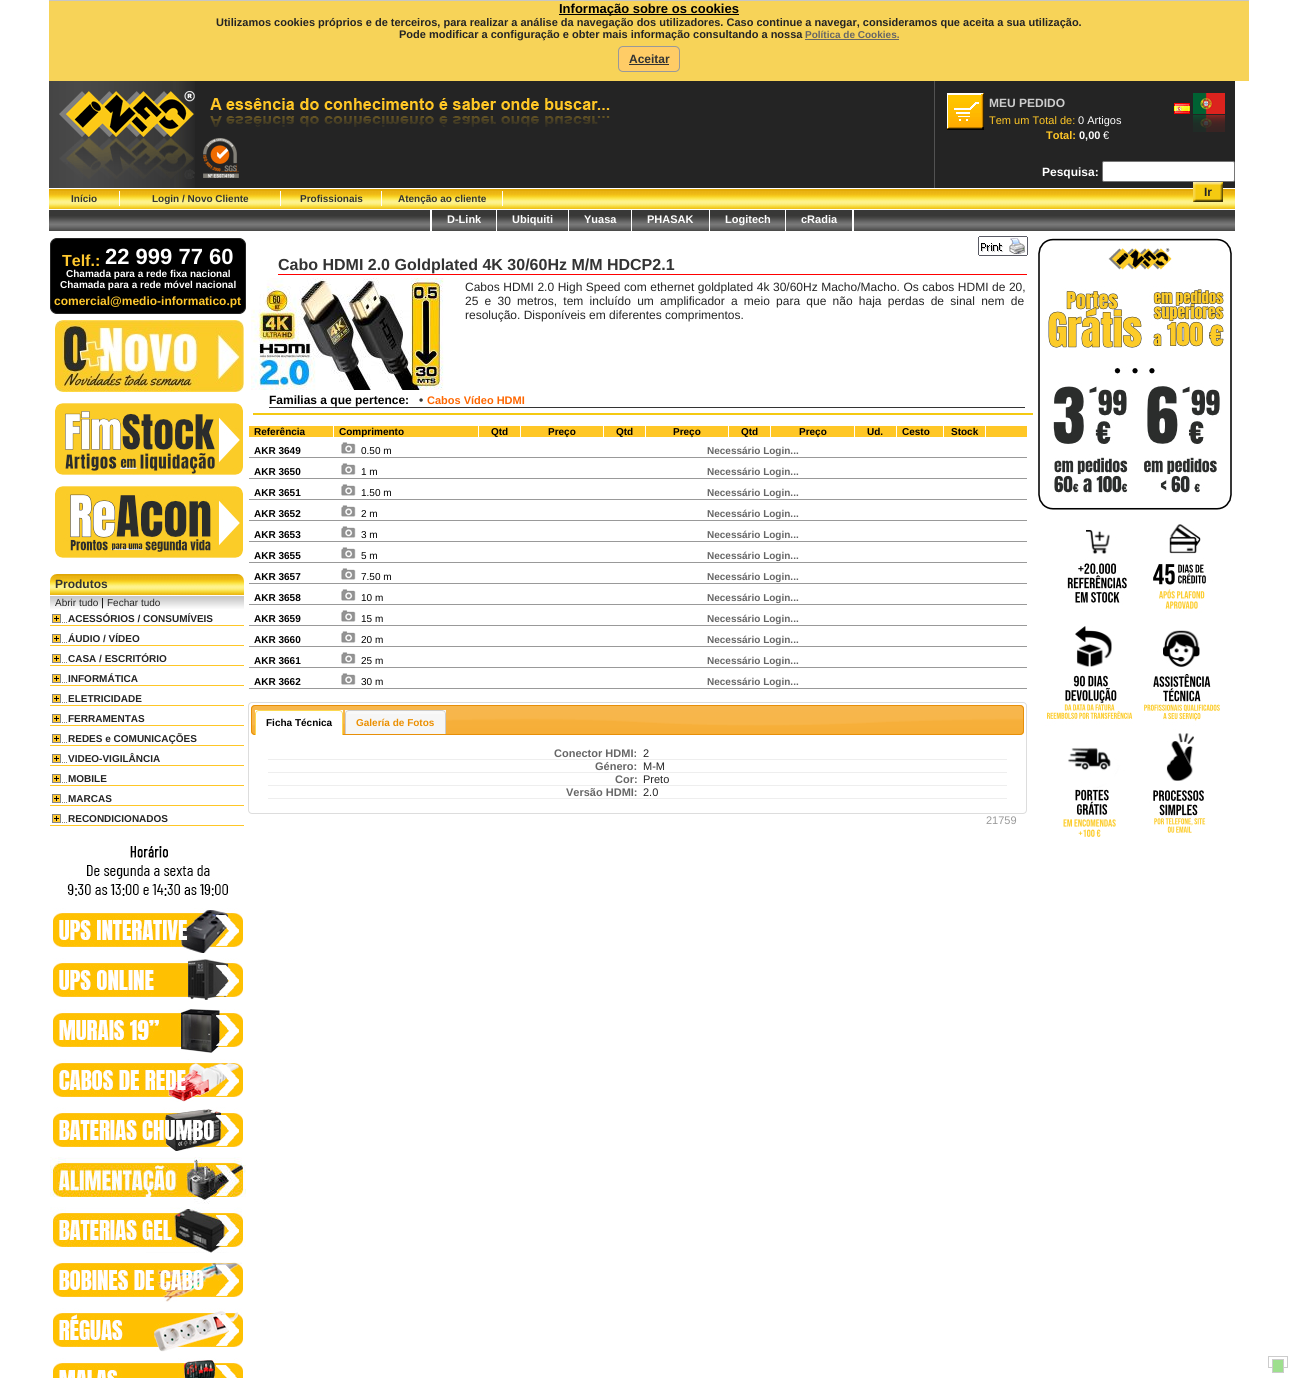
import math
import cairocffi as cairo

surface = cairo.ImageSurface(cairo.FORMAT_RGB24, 1298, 1378)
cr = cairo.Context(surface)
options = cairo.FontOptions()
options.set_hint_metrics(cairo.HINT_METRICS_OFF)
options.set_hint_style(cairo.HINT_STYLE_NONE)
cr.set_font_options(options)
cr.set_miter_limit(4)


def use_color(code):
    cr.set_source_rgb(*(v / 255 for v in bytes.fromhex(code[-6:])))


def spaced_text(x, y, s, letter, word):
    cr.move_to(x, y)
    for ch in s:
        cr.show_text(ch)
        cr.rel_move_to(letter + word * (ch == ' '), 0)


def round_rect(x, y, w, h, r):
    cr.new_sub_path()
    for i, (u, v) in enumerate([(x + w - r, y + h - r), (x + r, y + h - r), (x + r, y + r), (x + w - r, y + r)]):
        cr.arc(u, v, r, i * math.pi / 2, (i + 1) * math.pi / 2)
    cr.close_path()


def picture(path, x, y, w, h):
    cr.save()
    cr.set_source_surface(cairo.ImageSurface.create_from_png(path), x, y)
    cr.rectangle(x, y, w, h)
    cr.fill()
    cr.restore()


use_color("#ffffff")
cr.paint()
use_color("#f7d358")
cr.rectangle(49, 1, 1200, 80)
cr.fill()
use_color("#c6c6c6")
cr.rectangle(49, 0, 1200, 1)
cr.fill()
use_color("#000000")
cr.rectangle(559, 14, 180, 1)
cr.fill()
cr.select_font_face("Liberation Sans", cairo.FONT_SLANT_NORMAL, cairo.FONT_WEIGHT_BOLD)
cr.set_font_size(13)
cr.move_to(559, 13)
cr.show_text("Informação sobre os cookies")
cr.set_font_size(11)
use_color("#242424")
cr.move_to(216, 26)
cr.show_text("Utilizamos cookies próprios e de terceiros, para realizar a análise da navegação dos utilizadores. Caso continue a navegar, consideramos que aceita a sua utilização.")
cr.move_to(399, 38)
cr.show_text("Pode modificar a configuração e obter mais informação consultando a nossa")
cr.set_font_size(10)
use_color("#666666")
cr.move_to(805, 38)
cr.show_text("Política de Cookies.")
cr.rectangle(805, 39, 94, 1)
cr.fill()
use_color("#ffcc66")
round_rect(618.5, 46.5, 61, 25, 4.5)
cr.fill_preserve()
use_color("#999999")
cr.set_line_width(1)
cr.stroke()
cr.set_font_size(12)
use_color("#333333")
cr.move_to(629, 63)
cr.show_text("Aceitar")
cr.rectangle(629, 64, 40, 1)
cr.fill()
use_color("#242424")
cr.rectangle(195, 81, 1040, 107)
cr.fill()
picture("img1.png", 49, 81, 146, 107)
picture("img2.png", 210, 98, 400, 29)
use_color("#525252")
cr.rectangle(934, 81, 1, 107)
cr.fill()
picture("img3.png", 947, 93, 37, 37)
use_color("#cccccc")
cr.move_to(989, 107)
cr.show_text("MEU PEDIDO")
picture("img4.png", 1174, 103, 16, 11)
picture("img5.png", 1193, 93, 32, 39)
cr.select_font_face("Liberation Sans")
cr.set_font_size(11)
use_color("#ffc726")
cr.move_to(989, 124)
cr.show_text("Tem um Total de:")
use_color("#ffffff")
cr.move_to(1078, 124)
cr.show_text("0 Artigos")
cr.select_font_face("Liberation Sans", cairo.FONT_SLANT_NORMAL, cairo.FONT_WEIGHT_BOLD)
use_color("#ffc726")
cr.move_to(1046, 139)
cr.show_text("Total:")
use_color("#ffffff")
cr.move_to(1079, 139)
cr.show_text("0,00")
cr.select_font_face("Liberation Sans")
cr.move_to(1103, 139)
cr.show_text("€")
picture("img6.png", 203, 138, 36, 40)
cr.select_font_face("Liberation Sans", cairo.FONT_SLANT_NORMAL, cairo.FONT_WEIGHT_BOLD)
cr.set_font_size(12)
cr.move_to(1042, 176)
cr.show_text("Pesquisa:")
round_rect(1102.5, 161.5, 132, 20, 1.5)
cr.fill_preserve()
use_color("#767676")
cr.stroke()
picture("img8.png", 49, 189, 1186, 20)
picture("img7.png", 1193, 182, 30, 20)
use_color("#242424")
cr.move_to(1204, 196)
cr.show_text("Ir")
use_color("#ffffff")
cr.rectangle(119, 191, 1, 15)
cr.fill()
cr.set_font_size(10)
use_color("#333333")
cr.move_to(71, 202)
cr.show_text("Início")
use_color("#ffffff")
cr.rectangle(280, 191, 1, 15)
cr.fill()
use_color("#333333")
cr.move_to(152, 202)
cr.show_text("Login / Novo Cliente")
use_color("#ffffff")
cr.rectangle(381, 191, 1, 15)
cr.fill()
use_color("#333333")
cr.move_to(300, 202)
cr.show_text("Profissionais")
use_color("#ffffff")
cr.rectangle(502, 191, 1, 15)
cr.fill()
use_color("#333333")
cr.move_to(398, 202)
cr.show_text("Atenção ao cliente")
picture("img9.png", 49, 210, 1186, 21)
picture("img10.png", 432, 210, 64, 21)
use_color("#ffffff")
cr.rectangle(496, 210, 1, 21)
cr.fill()
cr.rectangle(430, 210, 2, 21)
cr.fill()
cr.set_font_size(11)
cr.move_to(447, 223)
cr.show_text("D-Link")
picture("img11.png", 497, 210, 71, 21)
cr.rectangle(568, 210, 1, 21)
cr.fill()
cr.move_to(512, 223)
cr.show_text("Ubiquiti")
picture("img12.png", 569, 210, 62, 21)
cr.rectangle(631, 210, 1, 21)
cr.fill()
cr.move_to(584, 223)
cr.show_text("Yuasa")
picture("img13.png", 632, 210, 77, 21)
cr.rectangle(709, 210, 1, 21)
cr.fill()
cr.move_to(647, 223)
cr.show_text("PHASAK")
picture("img14.png", 710, 210, 75, 21)
cr.rectangle(785, 210, 1, 21)
cr.fill()
cr.move_to(725, 223)
cr.show_text("Logitech")
picture("img15.png", 786, 210, 66, 21)
cr.rectangle(852, 210, 2, 21)
cr.fill()
cr.move_to(801, 223)
cr.show_text("cRadia")
use_color("#000000")
round_rect(50.5, 238.5, 195, 75, 6.5)
cr.fill_preserve()
use_color("#242424")
cr.stroke()
cr.set_font_size(16)
use_color("#ffc82e")
cr.move_to(62, 266)
cr.show_text("Telf.:")
cr.set_font_size(22)
use_color("#ffffff")
cr.move_to(105, 264)
cr.show_text("22 999 77 60")
cr.set_font_size(10)
cr.move_to(66, 277)
cr.show_text("Chamada para a rede fixa nacional")
cr.move_to(60, 288)
cr.show_text("Chamada para a rede móvel nacional")
cr.set_font_size(12)
use_color("#ffc82e")
cr.move_to(54, 305)
cr.show_text("comercial@medio-informatico.pt")
picture("img16.png", 55, 320, 189, 72)
picture("img17.png", 55, 403, 188, 72)
picture("img18.png", 55, 486, 188, 72)
picture("img19.png", 50, 574, 194, 21)
use_color("#333333")
cr.move_to(55, 588)
cr.show_text("Produtos")
picture("img20.png", 50, 596, 194, 13)
cr.select_font_face("Liberation Sans")
cr.set_font_size(10)
use_color("#242424")
cr.move_to(55, 606)
cr.show_text("Abrir tudo")
cr.set_font_size(11)
use_color("#000000")
cr.move_to(101, 606)
cr.show_text("|")
cr.set_font_size(10)
use_color("#242424")
cr.move_to(107, 606)
cr.show_text("Fechar tudo")
picture("img21.png", 52, 614, 15, 9)
use_color("#ffc726")
cr.rectangle(50, 625, 194, 1)
cr.fill()
cr.select_font_face("Liberation Sans", cairo.FONT_SLANT_NORMAL, cairo.FONT_WEIGHT_BOLD)
use_color("#242424")
cr.move_to(68, 622)
cr.show_text("ACESSÓRIOS / CONSUMÍVEIS")
picture("img21.png", 52, 634, 15, 9)
use_color("#ffc726")
cr.rectangle(50, 645, 194, 1)
cr.fill()
use_color("#242424")
cr.move_to(68, 642)
cr.show_text("ÁUDIO / VÍDEO")
picture("img21.png", 52, 654, 15, 9)
use_color("#ffc726")
cr.rectangle(50, 665, 194, 1)
cr.fill()
use_color("#242424")
cr.move_to(68, 662)
cr.show_text("CASA / ESCRITÓRIO")
picture("img21.png", 52, 674, 15, 9)
use_color("#ffc726")
cr.rectangle(50, 685, 194, 1)
cr.fill()
use_color("#242424")
cr.move_to(68, 682)
cr.show_text("INFORMÁTICA")
picture("img21.png", 52, 694, 15, 9)
use_color("#ffc726")
cr.rectangle(50, 705, 194, 1)
cr.fill()
use_color("#242424")
cr.move_to(68, 702)
cr.show_text("ELETRICIDADE")
picture("img21.png", 52, 714, 15, 9)
use_color("#ffc726")
cr.rectangle(50, 725, 194, 1)
cr.fill()
use_color("#242424")
cr.move_to(68, 722)
cr.show_text("FERRAMENTAS")
picture("img21.png", 52, 734, 15, 9)
use_color("#ffc726")
cr.rectangle(50, 745, 194, 1)
cr.fill()
use_color("#242424")
cr.move_to(68, 742)
cr.show_text("REDES e COMUNICAÇÕES")
picture("img21.png", 52, 754, 15, 9)
use_color("#ffc726")
cr.rectangle(50, 765, 194, 1)
cr.fill()
use_color("#242424")
cr.move_to(68, 762)
cr.show_text("VIDEO-VIGILÂNCIA")
picture("img21.png", 52, 774, 15, 9)
use_color("#ffc726")
cr.rectangle(50, 785, 194, 1)
cr.fill()
use_color("#242424")
cr.move_to(68, 782)
cr.show_text("MOBILE")
picture("img21.png", 52, 794, 15, 9)
use_color("#ffc726")
cr.rectangle(50, 805, 194, 1)
cr.fill()
use_color("#242424")
cr.move_to(68, 802)
cr.show_text("MARCAS")
picture("img21.png", 52, 814, 15, 9)
use_color("#ffc726")
cr.rectangle(50, 825, 194, 1)
cr.fill()
use_color("#242424")
cr.move_to(68, 822)
cr.show_text("RECONDICIONADOS")
picture("img22.png", 67, 846, 161, 50)
picture("img23.png", 53, 908, 190, 45)
picture("img24.png", 53, 958, 190, 42)
picture("img25.png", 53, 1009, 190, 44)
picture("img26.png", 53, 1059, 190, 43)
picture("img27.png", 53, 1107, 190, 44)
picture("img28.png", 50, 1157, 196, 47)
picture("img29.png", 50, 1207, 196, 46)
picture("img30.png", 53, 1262, 190, 40)
picture("img31.png", 53, 1308, 190, 44)
picture("img32.png", 53, 1358, 190, 20)
picture("img33.png", 978, 236, 50, 20)
use_color("#ff0000")
cr.rectangle(278, 274, 749, 1)
cr.fill()
cr.set_font_size(16)
use_color("#333333")
cr.move_to(278, 270)
cr.show_text("Cabo HDMI 2.0 Goldplated 4K 30/60Hz M/M HDCP2.1")
picture("img34.png", 251, 278, 193, 112)
cr.select_font_face("Liberation Sans")
cr.set_font_size(12)
use_color("#242424")
spaced_text(465, 291, "Cabos HDMI 2.0 High Speed com ethernet goldplated 4k 30/60Hz Macho/Macho. Os cabos HDMI de 20,", 0, 0.2)
spaced_text(465, 305, "25 e 30 metros, tem incluído um amplificador a meio para que não haja perdas de sinal nem de", 0, 2.9)
cr.move_to(465, 319)
cr.show_text("resolução. Disponíveis em diferentes comprimentos.")
use_color("#333333")
cr.rectangle(269, 407, 756, 1)
cr.fill()
cr.select_font_face("Liberation Sans", cairo.FONT_SLANT_NORMAL, cairo.FONT_WEIGHT_BOLD)
use_color("#000000")
cr.move_to(269, 404)
cr.show_text("Familias a que pertence:")
use_color("#333333")
cr.move_to(419, 404)
cr.show_text("•")
cr.set_font_size(11)
use_color("#ff6600")
cr.move_to(427, 404)
cr.show_text("Cabos Vídeo HDMI")
use_color("#f5ca11")
cr.rectangle(253, 413, 780, 2)
cr.fill()
use_color("#ffc726")
cr.rectangle(249, 426, 84, 11)
cr.fill()
cr.set_font_size(10)
use_color("#000000")
cr.move_to(254, 435)
cr.show_text("Referência")
use_color("#ffc726")
cr.rectangle(334, 426, 144, 11)
cr.fill()
use_color("#000000")
cr.move_to(339, 435)
cr.show_text("Comprimento")
use_color("#ffc726")
cr.rectangle(479, 426, 41, 11)
cr.fill()
use_color("#000000")
cr.move_to(491, 435)
cr.show_text("Qtd")
use_color("#ffc726")
cr.rectangle(521, 426, 82, 11)
cr.fill()
use_color("#000000")
cr.move_to(548, 435)
cr.show_text("Preço")
use_color("#ffc726")
cr.rectangle(604, 426, 41, 11)
cr.fill()
use_color("#000000")
cr.move_to(616, 435)
cr.show_text("Qtd")
use_color("#ffc726")
cr.rectangle(646, 426, 82, 11)
cr.fill()
use_color("#000000")
cr.move_to(673, 435)
cr.show_text("Preço")
use_color("#ffc726")
cr.rectangle(729, 426, 41, 11)
cr.fill()
use_color("#000000")
cr.move_to(741, 435)
cr.show_text("Qtd")
use_color("#ffc726")
cr.rectangle(771, 426, 83, 11)
cr.fill()
use_color("#000000")
cr.move_to(799, 435)
cr.show_text("Preço")
use_color("#ffc726")
cr.rectangle(855, 426, 41, 11)
cr.fill()
use_color("#000000")
cr.move_to(867, 435)
cr.show_text("Ud.")
use_color("#ffc726")
cr.rectangle(897, 426, 46, 11)
cr.fill()
use_color("#000000")
cr.move_to(902, 435)
cr.show_text("Cesto")
use_color("#ffc726")
cr.rectangle(944, 426, 41, 11)
cr.fill()
use_color("#000000")
cr.move_to(951, 435)
cr.show_text("Stock")
use_color("#ffc726")
cr.rectangle(986, 426, 41, 11)
cr.fill()
use_color("#000000")
cr.move_to(254, 454)
cr.show_text("AKR 3649")
picture("img35.png", 341, 442, 15, 12)
cr.select_font_face("Liberation Sans")
cr.move_to(361, 454)
cr.show_text("0.50 m")
cr.select_font_face("Liberation Sans", cairo.FONT_SLANT_NORMAL, cairo.FONT_WEIGHT_BOLD)
use_color("#666666")
cr.move_to(707, 454)
cr.show_text("Necessário Login...")
use_color("#999999")
cr.rectangle(249, 457, 778, 1)
cr.fill()
use_color("#000000")
cr.move_to(254, 475)
cr.show_text("AKR 3650")
picture("img35.png", 341, 463, 15, 12)
cr.select_font_face("Liberation Sans")
cr.move_to(361, 475)
cr.show_text("1 m")
cr.select_font_face("Liberation Sans", cairo.FONT_SLANT_NORMAL, cairo.FONT_WEIGHT_BOLD)
use_color("#666666")
cr.move_to(707, 475)
cr.show_text("Necessário Login...")
use_color("#999999")
cr.rectangle(249, 478, 778, 1)
cr.fill()
use_color("#000000")
cr.move_to(254, 496)
cr.show_text("AKR 3651")
picture("img35.png", 341, 484, 15, 12)
cr.select_font_face("Liberation Sans")
cr.move_to(361, 496)
cr.show_text("1.50 m")
cr.select_font_face("Liberation Sans", cairo.FONT_SLANT_NORMAL, cairo.FONT_WEIGHT_BOLD)
use_color("#666666")
cr.move_to(707, 496)
cr.show_text("Necessário Login...")
use_color("#999999")
cr.rectangle(249, 499, 778, 1)
cr.fill()
use_color("#000000")
cr.move_to(254, 517)
cr.show_text("AKR 3652")
picture("img35.png", 341, 505, 15, 12)
cr.select_font_face("Liberation Sans")
cr.move_to(361, 517)
cr.show_text("2 m")
cr.select_font_face("Liberation Sans", cairo.FONT_SLANT_NORMAL, cairo.FONT_WEIGHT_BOLD)
use_color("#666666")
cr.move_to(707, 517)
cr.show_text("Necessário Login...")
use_color("#999999")
cr.rectangle(249, 520, 778, 1)
cr.fill()
use_color("#000000")
cr.move_to(254, 538)
cr.show_text("AKR 3653")
picture("img35.png", 341, 526, 15, 12)
cr.select_font_face("Liberation Sans")
cr.move_to(361, 538)
cr.show_text("3 m")
cr.select_font_face("Liberation Sans", cairo.FONT_SLANT_NORMAL, cairo.FONT_WEIGHT_BOLD)
use_color("#666666")
cr.move_to(707, 538)
cr.show_text("Necessário Login...")
use_color("#999999")
cr.rectangle(249, 541, 778, 1)
cr.fill()
use_color("#000000")
cr.move_to(254, 559)
cr.show_text("AKR 3655")
picture("img35.png", 341, 547, 15, 12)
cr.select_font_face("Liberation Sans")
cr.move_to(361, 559)
cr.show_text("5 m")
cr.select_font_face("Liberation Sans", cairo.FONT_SLANT_NORMAL, cairo.FONT_WEIGHT_BOLD)
use_color("#666666")
cr.move_to(707, 559)
cr.show_text("Necessário Login...")
use_color("#999999")
cr.rectangle(249, 562, 778, 1)
cr.fill()
use_color("#000000")
cr.move_to(254, 580)
cr.show_text("AKR 3657")
picture("img35.png", 341, 568, 15, 12)
cr.select_font_face("Liberation Sans")
cr.move_to(361, 580)
cr.show_text("7.50 m")
cr.select_font_face("Liberation Sans", cairo.FONT_SLANT_NORMAL, cairo.FONT_WEIGHT_BOLD)
use_color("#666666")
cr.move_to(707, 580)
cr.show_text("Necessário Login...")
use_color("#999999")
cr.rectangle(249, 583, 778, 1)
cr.fill()
use_color("#000000")
cr.move_to(254, 601)
cr.show_text("AKR 3658")
picture("img35.png", 341, 589, 15, 12)
cr.select_font_face("Liberation Sans")
cr.move_to(361, 601)
cr.show_text("10 m")
cr.select_font_face("Liberation Sans", cairo.FONT_SLANT_NORMAL, cairo.FONT_WEIGHT_BOLD)
use_color("#666666")
cr.move_to(707, 601)
cr.show_text("Necessário Login...")
use_color("#999999")
cr.rectangle(249, 604, 778, 1)
cr.fill()
use_color("#000000")
cr.move_to(254, 622)
cr.show_text("AKR 3659")
picture("img35.png", 341, 610, 15, 12)
cr.select_font_face("Liberation Sans")
cr.move_to(361, 622)
cr.show_text("15 m")
cr.select_font_face("Liberation Sans", cairo.FONT_SLANT_NORMAL, cairo.FONT_WEIGHT_BOLD)
use_color("#666666")
cr.move_to(707, 622)
cr.show_text("Necessário Login...")
use_color("#999999")
cr.rectangle(249, 625, 778, 1)
cr.fill()
use_color("#000000")
cr.move_to(254, 643)
cr.show_text("AKR 3660")
picture("img35.png", 341, 631, 15, 12)
cr.select_font_face("Liberation Sans")
cr.move_to(361, 643)
cr.show_text("20 m")
cr.select_font_face("Liberation Sans", cairo.FONT_SLANT_NORMAL, cairo.FONT_WEIGHT_BOLD)
use_color("#666666")
cr.move_to(707, 643)
cr.show_text("Necessário Login...")
use_color("#999999")
cr.rectangle(249, 646, 778, 1)
cr.fill()
use_color("#000000")
cr.move_to(254, 664)
cr.show_text("AKR 3661")
picture("img35.png", 341, 652, 15, 12)
cr.select_font_face("Liberation Sans")
cr.move_to(361, 664)
cr.show_text("25 m")
cr.select_font_face("Liberation Sans", cairo.FONT_SLANT_NORMAL, cairo.FONT_WEIGHT_BOLD)
use_color("#666666")
cr.move_to(707, 664)
cr.show_text("Necessário Login...")
use_color("#999999")
cr.rectangle(249, 667, 778, 1)
cr.fill()
use_color("#000000")
cr.move_to(254, 685)
cr.show_text("AKR 3662")
picture("img35.png", 341, 673, 15, 12)
cr.select_font_face("Liberation Sans")
cr.move_to(361, 685)
cr.show_text("30 m")
cr.select_font_face("Liberation Sans", cairo.FONT_SLANT_NORMAL, cairo.FONT_WEIGHT_BOLD)
use_color("#666666")
cr.move_to(707, 685)
cr.show_text("Necessário Login...")
use_color("#999999")
cr.rectangle(249, 688, 778, 1)
cr.fill()
round_rect(248.5, 702.5, 778, 111, 3.5)
use_color("#dddddd")
cr.stroke()
picture("img36.png", 251, 705, 773, 30)
round_rect(251.5, 705.5, 772, 29, 3.5)
use_color("#e78f08")
cr.stroke()
use_color("#ffffff")
cr.rectangle(256, 714, 86, 21)
cr.fill()
use_color("#fefefe")
cr.rectangle(255, 710, 88, 4)
cr.fill()
use_color("#fbd850")
cr.set_fill_rule(cairo.FILL_RULE_EVEN_ODD)
cr.new_path()
cr.move_to(259, 710)
cr.line_to(339, 710)
cr.curve_to(341, 710, 343, 712, 343, 714)
cr.line_to(343, 735)
cr.line_to(255, 735)
cr.line_to(255, 714)
cr.curve_to(255, 712, 257, 710, 259, 710)
cr.close_path()
cr.move_to(259, 711)
cr.line_to(339, 711)
cr.curve_to(341, 711, 342, 712, 342, 714)
cr.line_to(342, 735)
cr.line_to(256, 735)
cr.line_to(256, 714)
cr.curve_to(256, 712, 257, 711, 259, 711)
cr.close_path()
cr.fill()
use_color("#000000")
cr.move_to(266, 726)
cr.show_text("Ficha Técnica")
use_color("#f6f6f6")
cr.rectangle(346, 714, 99, 20)
cr.fill()
use_color("#f9f9f9")
cr.rectangle(345, 710, 101, 4)
cr.fill()
use_color("#cccccc")
cr.new_path()
cr.move_to(349, 710)
cr.line_to(442, 710)
cr.curve_to(444, 710, 446, 712, 446, 714)
cr.line_to(446, 734)
cr.line_to(345, 734)
cr.line_to(345, 714)
cr.curve_to(345, 712, 347, 710, 349, 710)
cr.close_path()
cr.move_to(349, 711)
cr.line_to(442, 711)
cr.curve_to(444, 711, 445, 712, 445, 714)
cr.line_to(445, 734)
cr.line_to(346, 734)
cr.line_to(346, 714)
cr.curve_to(346, 712, 347, 711, 349, 711)
cr.close_path()
cr.fill()
use_color("#eb8f00")
cr.move_to(356, 726)
cr.show_text("Galería de Fotos")
use_color("#eeeeee")
cr.rectangle(268, 759, 739, 1)
cr.fill()
cr.set_font_size(11)
use_color("#666666")
cr.move_to(554, 757)
cr.show_text("Conector HDMI:")
cr.select_font_face("Liberation Sans")
use_color("#242424")
cr.move_to(643, 757)
cr.show_text("2")
use_color("#eeeeee")
cr.rectangle(268, 772, 739, 1)
cr.fill()
cr.select_font_face("Liberation Sans", cairo.FONT_SLANT_NORMAL, cairo.FONT_WEIGHT_BOLD)
use_color("#666666")
cr.move_to(595, 770)
cr.show_text("Género:")
cr.select_font_face("Liberation Sans")
use_color("#242424")
cr.move_to(643, 770)
cr.show_text("M-M")
use_color("#eeeeee")
cr.rectangle(268, 785, 739, 1)
cr.fill()
cr.select_font_face("Liberation Sans", cairo.FONT_SLANT_NORMAL, cairo.FONT_WEIGHT_BOLD)
use_color("#666666")
cr.move_to(615, 783)
cr.show_text("Cor:")
cr.select_font_face("Liberation Sans")
use_color("#242424")
cr.move_to(643, 783)
cr.show_text("Preto")
use_color("#eeeeee")
cr.rectangle(268, 798, 739, 1)
cr.fill()
cr.select_font_face("Liberation Sans", cairo.FONT_SLANT_NORMAL, cairo.FONT_WEIGHT_BOLD)
use_color("#666666")
cr.move_to(566, 796)
cr.show_text("Versão HDMI:")
cr.select_font_face("Liberation Sans")
use_color("#242424")
cr.move_to(643, 796)
cr.show_text("2.0")
use_color("#999999")
cr.move_to(986, 824)
cr.show_text("21759")
picture("img37.png", 1038, 238, 194, 599)
cr.rectangle(1268.5, 1356.5, 19, 11)
use_color("#cccccc")
cr.stroke()
use_color("#9edf8e")
cr.rectangle(1272.5, 1359.5, 11, 13)
cr.fill_preserve()
use_color("#cccccc")
cr.stroke()
surface.write_to_png("result.png")
